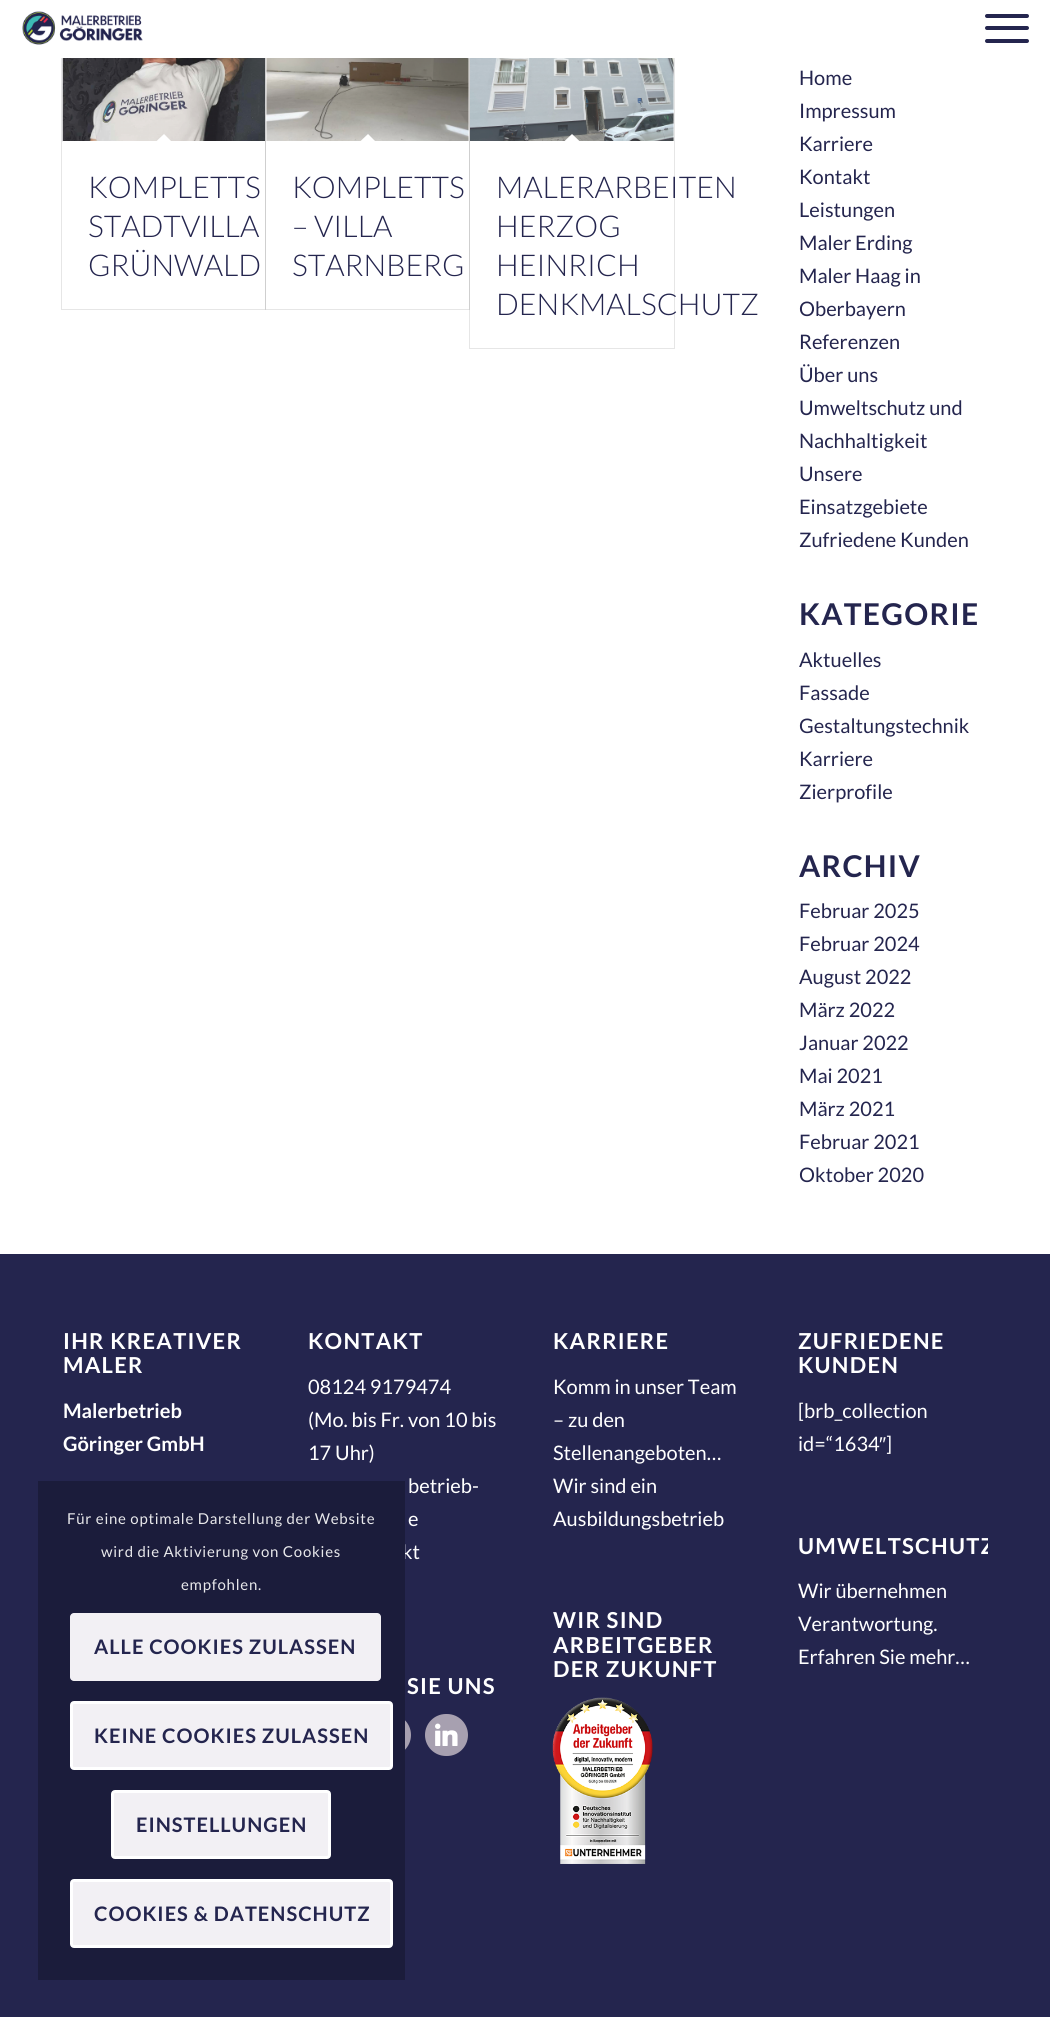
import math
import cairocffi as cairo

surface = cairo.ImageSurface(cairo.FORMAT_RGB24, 1050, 2017)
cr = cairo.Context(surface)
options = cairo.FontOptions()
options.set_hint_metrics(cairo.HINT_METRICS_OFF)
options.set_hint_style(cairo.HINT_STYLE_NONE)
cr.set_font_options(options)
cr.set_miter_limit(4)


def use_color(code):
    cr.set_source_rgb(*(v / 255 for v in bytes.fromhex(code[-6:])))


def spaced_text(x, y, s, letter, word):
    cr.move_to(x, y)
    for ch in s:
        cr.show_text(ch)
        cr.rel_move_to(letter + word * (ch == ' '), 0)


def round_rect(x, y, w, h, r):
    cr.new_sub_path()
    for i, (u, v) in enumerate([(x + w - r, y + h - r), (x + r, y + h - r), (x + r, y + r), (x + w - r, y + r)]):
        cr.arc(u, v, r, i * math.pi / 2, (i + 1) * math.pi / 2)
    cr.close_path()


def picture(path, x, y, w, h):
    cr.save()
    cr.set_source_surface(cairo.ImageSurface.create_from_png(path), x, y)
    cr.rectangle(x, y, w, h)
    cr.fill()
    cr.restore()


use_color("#ffffff")
cr.paint()
cr.rectangle(61.5, -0.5, 204, 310)
use_color("#e6e6e6")
cr.set_line_width(1)
cr.stroke()
cr.rectangle(265.5, -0.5, 204, 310)
cr.set_source_rgba(0, 0, 0, 0.1)
cr.stroke()
cr.rectangle(469.5, -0.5, 205, 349)
cr.stroke()
use_color("#ffffff")
cr.rectangle(61, 0, 614, 58)
cr.fill()
picture("img1.png", 22, 11, 121, 34)
use_color("#24254e")
round_rect(985, 26, 44, 4, 2)
cr.fill()
round_rect(985, 14, 44, 4, 2)
cr.fill()
round_rect(985, 39, 44, 4, 2)
cr.fill()
picture("img2.png", 62, 58, 203, 84)
use_color("#ffffff")
cr.rectangle(63, 141, 202, 1)
cr.fill()
cr.new_path()
cr.move_to(164, 134)
cr.line_to(172.5, 142.5)
cr.line_to(164, 151.5)
cr.line_to(155, 142.5)
cr.close_path()
cr.fill()
cr.select_font_face("Lato Light")
cr.set_font_size(30)
use_color("#24254e")
cr.move_to(88, 198)
cr.show_text("KOMPLETTS")
cr.move_to(88, 237)
cr.show_text("STADTVILLA")
cr.move_to(88, 276)
cr.show_text("GRÜNWALD")
picture("img3.png", 266, 58, 203, 83)
use_color("#ffffff")
cr.new_path()
cr.move_to(368, 134)
cr.line_to(376.5, 142.5)
cr.line_to(368, 151.5)
cr.line_to(359, 142.5)
cr.close_path()
cr.fill()
use_color("#24254e")
cr.move_to(292, 198)
cr.show_text("KOMPLETTS")
cr.move_to(292, 237)
cr.show_text("– VILLA")
cr.move_to(292, 276)
cr.show_text("STARNBERG")
picture("img4.png", 470, 58, 204, 83)
use_color("#ffffff")
cr.new_path()
cr.move_to(572, 134)
cr.line_to(581, 142.5)
cr.line_to(572, 151.5)
cr.line_to(563, 142.5)
cr.close_path()
cr.fill()
use_color("#24254e")
cr.move_to(496, 198)
cr.show_text("MALERARBEITEN")
cr.move_to(496, 237)
cr.show_text("HERZOG")
cr.move_to(496, 276)
cr.show_text("HEINRICH")
cr.move_to(496, 315)
cr.show_text("DENKMALSCHUTZ")
cr.select_font_face("Lato")
cr.set_font_size(20)
cr.move_to(799, 85)
cr.show_text("Home")
cr.move_to(799, 118)
cr.show_text("Impressum")
cr.move_to(799, 151)
cr.show_text("Karriere")
cr.move_to(799, 184)
cr.show_text("Kontakt")
cr.move_to(799, 217)
cr.show_text("Leistungen")
cr.move_to(799, 250)
cr.show_text("Maler Erding")
cr.move_to(799, 283)
cr.show_text("Maler Haag in")
cr.move_to(799, 316)
cr.show_text("Oberbayern")
cr.move_to(799, 349)
cr.show_text("Referenzen")
cr.move_to(799, 382)
cr.show_text("Über uns")
cr.move_to(799, 415)
cr.show_text("Umweltschutz und")
cr.move_to(799, 448)
cr.show_text("Nachhaltigkeit")
cr.move_to(799, 481)
cr.show_text("Unsere")
cr.move_to(799, 514)
cr.show_text("Einsatzgebiete")
cr.move_to(799, 547)
cr.show_text("Zufriedene Kunden")
cr.select_font_face("Lato", cairo.FONT_SLANT_NORMAL, cairo.FONT_WEIGHT_BOLD)
cr.set_font_size(30)
spaced_text(799, 625, "KATEGORIE", 1.25, 0)
cr.select_font_face("Lato")
cr.set_font_size(20)
cr.move_to(799, 667)
cr.show_text("Aktuelles")
cr.move_to(799, 700)
cr.show_text("Fassade")
cr.move_to(799, 733)
cr.show_text("Gestaltungstechnik")
cr.move_to(799, 766)
cr.show_text("Karriere")
cr.move_to(799, 799)
cr.show_text("Zierprofile")
cr.select_font_face("Lato", cairo.FONT_SLANT_NORMAL, cairo.FONT_WEIGHT_BOLD)
cr.set_font_size(30)
spaced_text(799, 877, "ARCHIV", 1.25, 0)
cr.select_font_face("Lato")
cr.set_font_size(20)
cr.move_to(799, 918)
cr.show_text("Februar 2025")
cr.move_to(799, 951)
cr.show_text("Februar 2024")
cr.move_to(799, 984)
cr.show_text("August 2022")
cr.move_to(799, 1017)
cr.show_text("März 2022")
cr.move_to(799, 1050)
cr.show_text("Januar 2022")
cr.move_to(799, 1083)
cr.show_text("Mai 2021")
cr.move_to(799, 1116)
cr.show_text("März 2021")
cr.move_to(799, 1149)
cr.show_text("Februar 2021")
cr.move_to(799, 1182)
cr.show_text("Oktober 2020")
cr.rectangle(0, 1254, 1050, 763)
cr.fill()
cr.select_font_face("Lato", cairo.FONT_SLANT_NORMAL, cairo.FONT_WEIGHT_BOLD)
cr.set_font_size(22)
use_color("#ffffff")
spaced_text(63, 1349, "IHR KREATIVER", 1.25, 0)
spaced_text(63, 1373, "MALER", 1.25, 0)
cr.set_font_size(20)
cr.move_to(63, 1418)
cr.show_text("Malerbetrieb")
cr.move_to(63, 1451)
cr.show_text("Göringer GmbH")
cr.set_font_size(22)
spaced_text(308, 1349, "KONTAKT", 1.25, 0)
cr.select_font_face("Lato")
cr.set_font_size(20)
cr.move_to(308, 1394)
cr.show_text("08124 9179474")
cr.move_to(308, 1427)
cr.show_text("(Mo. bis Fr. von 10 bis")
cr.move_to(308, 1460)
cr.show_text("17 Uhr)")
cr.move_to(408, 1493)
cr.show_text("betrieb-")
cr.move_to(408, 1526)
cr.show_text("e")
cr.move_to(402, 1559)
cr.show_text("kt")
cr.select_font_face("Lato", cairo.FONT_SLANT_NORMAL, cairo.FONT_WEIGHT_BOLD)
cr.set_font_size(22)
spaced_text(407, 1694, "SIE UNS", 1.25, 0)
use_color("#a7a0b0")
cr.new_path()
cr.arc(390, 1735, 21, 0, 2 * math.pi)
cr.fill()
round_rect(425, 1714, 43, 42, 21)
cr.fill()
picture("img5.png", 435, 1723, 23, 23)
use_color("#ffffff")
spaced_text(553, 1349, "KARRIERE", 1.25, 0)
cr.select_font_face("Lato")
cr.set_font_size(20)
cr.move_to(553, 1394)
cr.show_text("Komm in unser Team")
cr.move_to(553, 1427)
cr.show_text("– zu den")
cr.move_to(553, 1460)
cr.show_text("Stellenangeboten…")
cr.move_to(553, 1493)
cr.show_text("Wir sind ein")
cr.move_to(553, 1526)
cr.show_text("Ausbildungsbetrieb")
cr.select_font_face("Lato", cairo.FONT_SLANT_NORMAL, cairo.FONT_WEIGHT_BOLD)
cr.set_font_size(22)
spaced_text(553, 1628, "WIR SIND", 1.25, 0)
spaced_text(553, 1653, "ARBEITGEBER", 1.25, 0)
spaced_text(553, 1677, "DER ZUKUNFT", 1.25, 0)
picture("img6.png", 552, 1697, 101, 167)
spaced_text(798, 1349, "ZUFRIEDENE", 1.25, 0)
spaced_text(798, 1373, "KUNDEN", 1.25, 0)
cr.select_font_face("Lato")
cr.set_font_size(20)
cr.move_to(798, 1418)
cr.show_text("[brb_collection")
cr.move_to(798, 1451)
cr.show_text("id=“1634")
cr.select_font_face("Liberation Sans")
cr.move_to(879, 1451)
cr.show_text("″")
cr.select_font_face("Lato")
cr.move_to(886, 1451)
cr.show_text("]")
cr.save()
cr.rectangle(798, 1515, 190, 176)
cr.clip()
cr.select_font_face("Lato", cairo.FONT_SLANT_NORMAL, cairo.FONT_WEIGHT_BOLD)
cr.set_font_size(22)
spaced_text(798, 1554, "UMWELTSCHUTZ", 1.25, 0)
cr.restore()
cr.move_to(798, 1598)
cr.show_text("Wir übernehmen")
cr.move_to(798, 1631)
cr.show_text("Verantwortung.")
cr.move_to(798, 1664)
cr.show_text("Erfahren Sie mehr…")
use_color("#1b1c3b")
cr.rectangle(38, 1481, 367, 499)
cr.fill()
cr.set_font_size(15)
use_color("#e8e8eb")
spaced_text(67, 1524, "Für eine optimale Darstellung der Website", 0.75, 0)
spaced_text(101, 1557, "wird die Aktivierung von Cookies", 0.75, 0)
spaced_text(181, 1590, "empfohlen.", 0.75, 0)
use_color("#f2f0f4")
round_rect(70, 1613, 311, 68, 4)
cr.fill()
cr.select_font_face("Lato", cairo.FONT_SLANT_NORMAL, cairo.FONT_WEIGHT_BOLD)
cr.set_font_size(20)
use_color("#24254e")
spaced_text(94, 1654, "ALLE COOKIES ZULASSEN", 1, 0)
use_color("#f2f0f4")
round_rect(71.5, 1702.5, 320, 66, 2.5)
cr.fill_preserve()
use_color("#ffffff")
cr.set_line_width(3)
cr.stroke()
use_color("#24254e")
spaced_text(94, 1743, "KEINE COOKIES ZULASSEN", 1, 0)
use_color("#f2f0f4")
round_rect(112.5, 1791.5, 217, 66, 2.5)
cr.fill_preserve()
use_color("#ffffff")
cr.stroke()
use_color("#24254e")
spaced_text(136, 1832, "EINSTELLUNGEN", 1, 0)
use_color("#f2f0f4")
round_rect(71.5, 1880.5, 320, 66, 2.5)
cr.fill_preserve()
use_color("#ffffff")
cr.stroke()
use_color("#24254e")
spaced_text(94, 1921, "COOKIES & DATENSCHUTZ", 1, 0)
surface.write_to_png("result.png")
